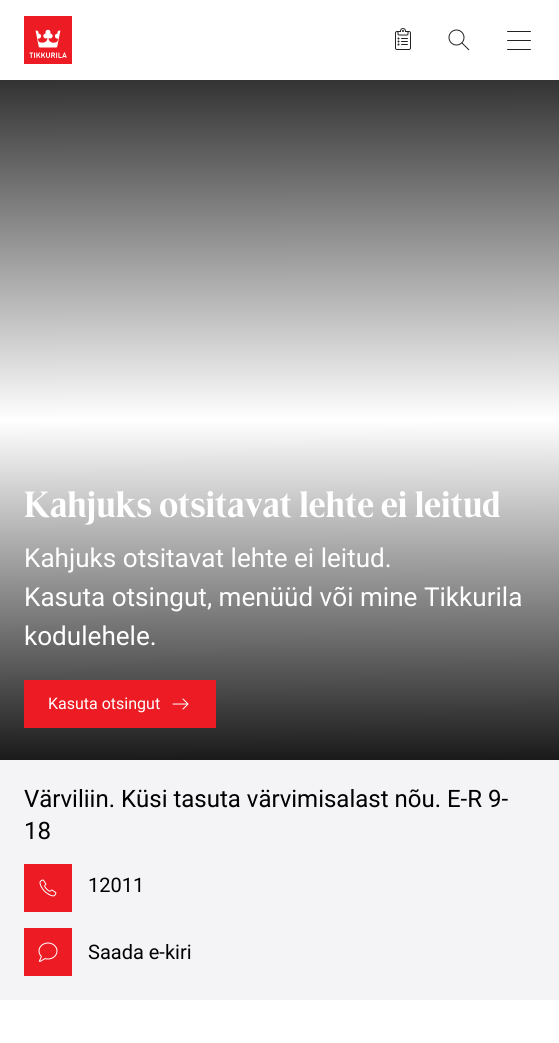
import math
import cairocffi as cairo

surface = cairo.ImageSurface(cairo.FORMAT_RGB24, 559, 1043)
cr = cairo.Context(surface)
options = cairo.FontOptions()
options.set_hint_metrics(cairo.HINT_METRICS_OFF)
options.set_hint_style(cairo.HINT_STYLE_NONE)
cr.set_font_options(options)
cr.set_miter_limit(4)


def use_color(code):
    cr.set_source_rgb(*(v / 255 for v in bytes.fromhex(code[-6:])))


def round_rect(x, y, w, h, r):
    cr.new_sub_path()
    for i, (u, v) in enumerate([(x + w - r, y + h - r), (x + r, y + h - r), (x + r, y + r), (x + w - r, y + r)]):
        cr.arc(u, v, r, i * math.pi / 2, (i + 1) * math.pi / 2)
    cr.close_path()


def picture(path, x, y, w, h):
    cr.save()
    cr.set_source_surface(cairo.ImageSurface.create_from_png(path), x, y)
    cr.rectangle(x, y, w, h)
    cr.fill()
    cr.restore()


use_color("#ffffff")
cr.paint()
picture("img1.png", 24, 16, 48, 48)
picture("img2.png", 395, 28, 16, 22)
picture("img3.png", 448, 29, 22, 22)
use_color("#222222")
round_rect(507, 31, 24, 1, 0.5)
cr.fill()
round_rect(507, 40, 24, 1, 0.5)
cr.fill()
round_rect(507, 49, 24, 1, 0.5)
cr.fill()
gradient = cairo.LinearGradient(279, 80, 280, 760)
gradient.add_color_stop_rgba(0, 0.2, 0.2, 0.2, 1)
gradient.add_color_stop_rgba(0.5, 1, 1, 1, 1)
gradient.add_color_stop_rgba(1, 0.102, 0.102, 0.102, 1)
cr.set_source(gradient)
cr.rectangle(0, 80, 559, 680)
cr.fill()
cr.select_font_face("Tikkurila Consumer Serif")
cr.set_font_size(36.3)
use_color("#ffffff")
cr.move_to(24, 517)
cr.show_text("Kahjuks otsitavat lehte ei leitud")
cr.select_font_face("Roboto")
cr.set_font_size(26.1)
cr.move_to(24, 567)
cr.show_text("Kahjuks otsitavat lehte ei leitud.")
cr.move_to(24, 606)
cr.show_text("Kasuta otsingut, menüüd või mine Tikkurila")
cr.move_to(24, 645)
cr.show_text("kodulehele.")
use_color("#ed1c24")
cr.rectangle(24, 680, 192, 48)
cr.fill()
cr.set_font_size(16)
use_color("#ffffff")
cr.move_to(48, 709)
cr.show_text("Kasuta otsingut")
picture("img4.png", 172, 698, 17, 12)
use_color("#f4f4f6")
cr.rectangle(0, 760, 559, 240)
cr.fill()
cr.set_font_size(24)
use_color("#000000")
cr.move_to(24, 807)
cr.show_text("Värviliin. Küsi tasuta värvimisalast nõu. E-R 9-")
cr.move_to(24, 839)
cr.show_text("18")
use_color("#ed1c24")
cr.rectangle(24, 864, 48, 48)
cr.fill()
picture("img5.png", 39, 879, 18, 18)
cr.set_font_size(20)
use_color("#000000")
cr.move_to(88, 892)
cr.show_text("12011")
use_color("#ed1c24")
cr.rectangle(24, 928, 48, 48)
cr.fill()
picture("img6.png", 38, 942, 20, 20)
use_color("#000000")
cr.move_to(88, 959)
cr.show_text("Saada e-kiri")
surface.write_to_png("result.png")
